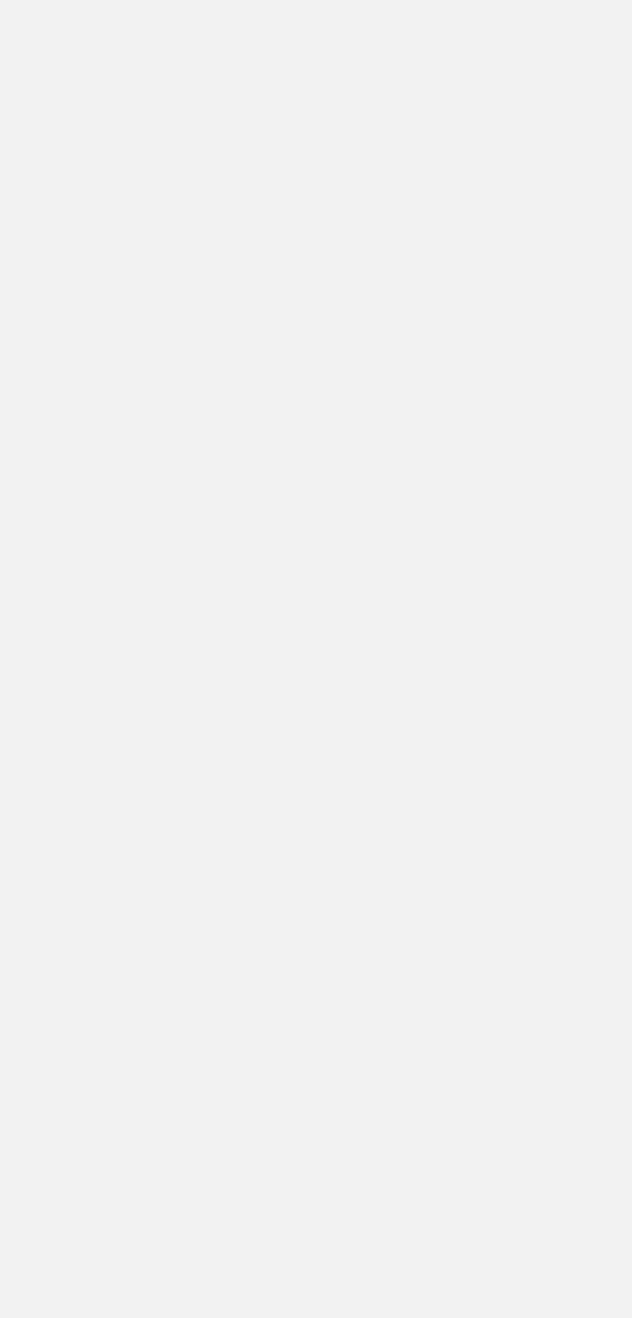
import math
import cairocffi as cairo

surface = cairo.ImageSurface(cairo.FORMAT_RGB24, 632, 1320)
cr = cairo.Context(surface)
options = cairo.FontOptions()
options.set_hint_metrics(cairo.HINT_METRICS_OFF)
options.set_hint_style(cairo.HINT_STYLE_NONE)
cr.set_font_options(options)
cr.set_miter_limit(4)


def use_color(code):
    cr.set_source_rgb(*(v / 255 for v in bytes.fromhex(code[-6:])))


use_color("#ffffff")
cr.paint()
use_color("#f2f2f2")
cr.rectangle(0, 0, 632, 1318)
cr.fill()
surface.write_to_png("result.png")
